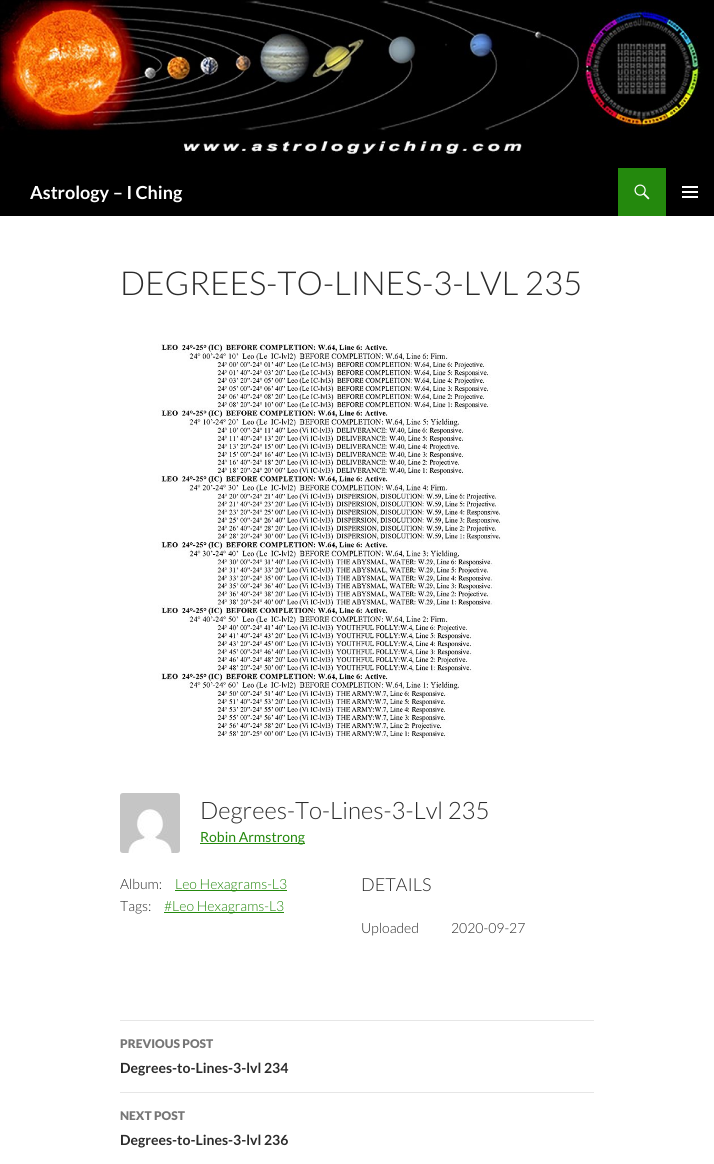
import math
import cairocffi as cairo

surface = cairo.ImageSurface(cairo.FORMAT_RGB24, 714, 1164)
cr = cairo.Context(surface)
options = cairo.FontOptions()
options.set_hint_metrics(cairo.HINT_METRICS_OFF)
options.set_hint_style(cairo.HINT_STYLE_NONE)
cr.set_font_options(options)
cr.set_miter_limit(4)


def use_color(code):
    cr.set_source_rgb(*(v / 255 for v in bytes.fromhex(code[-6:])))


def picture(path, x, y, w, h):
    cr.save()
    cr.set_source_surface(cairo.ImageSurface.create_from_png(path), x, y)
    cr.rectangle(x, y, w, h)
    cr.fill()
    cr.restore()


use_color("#ffffff")
cr.paint()
picture("img1.png", 0, 0, 714, 168)
use_color("#000000")
cr.rectangle(0, 168, 714, 48)
cr.fill()
cr.select_font_face("Lato", cairo.FONT_SLANT_NORMAL, cairo.FONT_WEIGHT_BOLD)
cr.set_font_size(18)
use_color("#ffffff")
cr.move_to(30, 199)
cr.show_text("Astrology – I Ching")
use_color("#24890d")
cr.rectangle(618, 168, 48, 48)
cr.fill()
picture("img2.png", 634, 184, 16, 16)
picture("img3.png", 682, 186, 16, 12)
cr.select_font_face("Lato Light")
cr.set_font_size(33)
use_color("#2b2b2b")
cr.move_to(120, 295)
cr.show_text("DEGREES-TO-LINES-3-LVL 235")
picture("img4.png", 158, 344, 344, 396)
picture("img5.png", 120, 793, 60, 60)
cr.set_font_size(24)
cr.move_to(200, 819)
cr.show_text("Degrees-To-Lines-3-Lvl 235")
use_color("#24890d")
cr.rectangle(200, 843, 105, 1)
cr.fill()
cr.select_font_face("Lato")
cr.set_font_size(14)
cr.move_to(200, 842)
cr.show_text("Robin Armstrong")
cr.select_font_face("Lato Light")
use_color("#2b2b2b")
cr.move_to(120, 889)
cr.show_text("Album:")
use_color("#24890d")
cr.rectangle(175, 890, 112, 1)
cr.fill()
cr.move_to(175, 889)
cr.show_text("Leo Hexagrams-L3")
use_color("#2b2b2b")
cr.move_to(120, 911)
cr.show_text("Tags:")
use_color("#24890d")
cr.rectangle(164, 912, 120, 1)
cr.fill()
cr.move_to(164, 911)
cr.show_text("#Leo Hexagrams-L3")
cr.set_font_size(18)
use_color("#2b2b2b")
cr.move_to(361, 891)
cr.show_text("DETAILS")
cr.set_font_size(14)
cr.move_to(361, 933)
cr.show_text("Uploaded")
cr.move_to(451, 933)
cr.show_text("2020-09-27")
use_color("#e6e6e6")
cr.rectangle(120, 1020, 474, 1)
cr.fill()
cr.rectangle(120, 1092, 474, 1)
cr.fill()
cr.select_font_face("Lato Black")
cr.set_font_size(12)
use_color("#767676")
cr.move_to(120, 1048)
cr.show_text("PREVIOUS POST")
cr.select_font_face("Lato", cairo.FONT_SLANT_NORMAL, cairo.FONT_WEIGHT_BOLD)
cr.set_font_size(14)
use_color("#2b2b2b")
cr.move_to(120, 1073)
cr.show_text("Degrees-to-Lines-3-lvl 234")
cr.select_font_face("Lato Black")
cr.set_font_size(12)
use_color("#767676")
cr.move_to(120, 1120)
cr.show_text("NEXT POST")
cr.select_font_face("Lato", cairo.FONT_SLANT_NORMAL, cairo.FONT_WEIGHT_BOLD)
cr.set_font_size(14)
use_color("#2b2b2b")
cr.move_to(120, 1145)
cr.show_text("Degrees-to-Lines-3-lvl 236")
surface.write_to_png("result.png")
